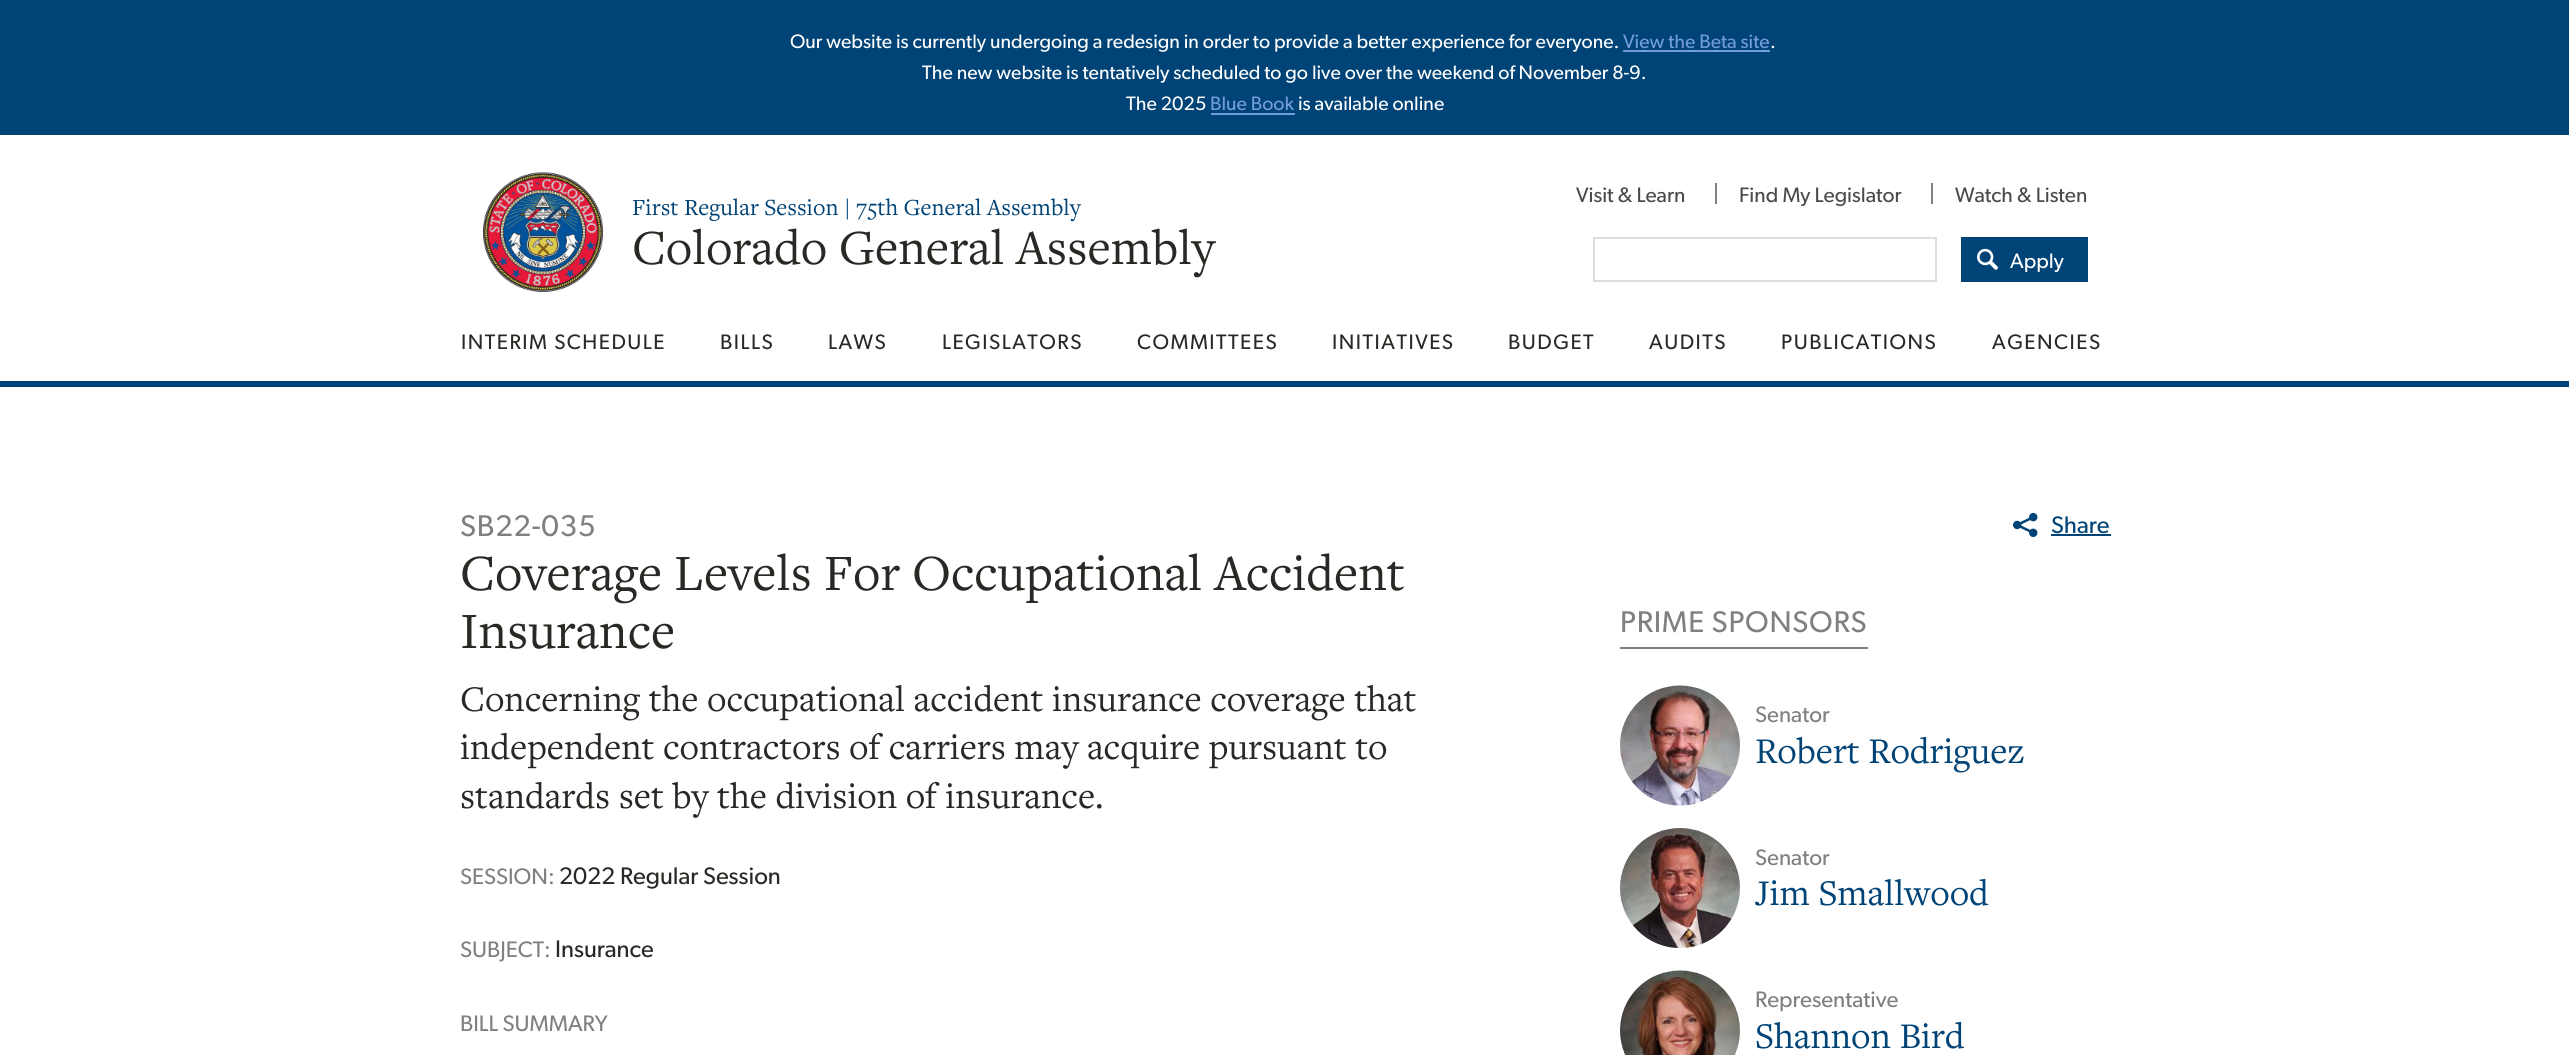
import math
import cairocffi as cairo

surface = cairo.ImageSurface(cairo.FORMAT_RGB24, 2569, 1055)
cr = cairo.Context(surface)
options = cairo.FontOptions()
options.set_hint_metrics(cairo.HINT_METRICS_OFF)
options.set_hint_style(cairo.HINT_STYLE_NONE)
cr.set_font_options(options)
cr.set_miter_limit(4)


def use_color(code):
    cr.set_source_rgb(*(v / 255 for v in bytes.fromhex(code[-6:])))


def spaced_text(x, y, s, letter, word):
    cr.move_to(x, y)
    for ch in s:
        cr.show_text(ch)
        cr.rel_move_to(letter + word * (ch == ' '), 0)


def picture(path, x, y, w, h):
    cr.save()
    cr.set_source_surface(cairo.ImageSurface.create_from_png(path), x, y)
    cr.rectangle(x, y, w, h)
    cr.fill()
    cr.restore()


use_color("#ffffff")
cr.paint()
use_color("#004376")
cr.rectangle(0, 0, 2569, 135)
cr.fill()
cr.select_font_face("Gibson")
cr.set_font_size(19.5)
use_color("#ffffff")
cr.move_to(790, 48)
cr.show_text("Our website is currently undergoing a redesign in order to provide a better experience for everyone.")
use_color("#739cdd")
cr.move_to(1623, 48)
cr.show_text("View the Beta site")
cr.rectangle(1623, 50, 147, 2)
cr.fill()
use_color("#ffffff")
cr.move_to(1770, 48)
cr.show_text(".")
cr.move_to(922, 79)
cr.show_text("The new website is tentatively scheduled to go live over the weekend of November 8-9.")
cr.move_to(1126, 110)
cr.show_text("The 2025")
use_color("#739cdd")
cr.move_to(1210, 110)
cr.show_text("Blue Book")
cr.rectangle(1211, 113, 84, 2)
cr.fill()
use_color("#ffffff")
cr.move_to(1298, 110)
cr.show_text("is available online")
use_color("#004376")
cr.rectangle(0, 381, 2569, 6)
cr.fill()
picture("img1.png", 483, 172, 120, 120)
cr.select_font_face("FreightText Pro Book")
cr.set_font_size(24)
cr.move_to(632, 215)
cr.show_text("First Regular Session | 75th General Assembly")
cr.set_font_size(51)
use_color("#282924")
cr.move_to(632, 264)
cr.show_text("Colorado General Assembly")
cr.select_font_face("Gibson")
cr.set_font_size(21)
use_color("#4a4a4a")
cr.move_to(1576, 202)
cr.show_text("Visit & Learn")
use_color("#808080")
cr.rectangle(1715, 183, 2, 21)
cr.fill()
use_color("#4a4a4a")
cr.move_to(1739, 202)
cr.show_text("Find My Legislator")
use_color("#808080")
cr.rectangle(1931, 183, 2, 21)
cr.fill()
use_color("#4a4a4a")
cr.move_to(1955, 202)
cr.show_text("Watch & Listen")
cr.rectangle(1594, 238, 342, 43)
use_color("#dddddd")
cr.stroke()
use_color("#004376")
cr.rectangle(1961, 237, 127, 45)
cr.fill()
picture("img2.png", 1977, 248, 21, 22)
use_color("#ffffff")
cr.move_to(2010, 268)
cr.show_text("Apply")
use_color("#282924")
spaced_text(461, 349, "INTERIM SCHEDULE", 1.5, 0)
spaced_text(720, 349, "BILLS", 1.5, 0)
spaced_text(828, 349, "LAWS", 1.5, 0)
spaced_text(942, 349, "LEGISLATORS", 1.5, 0)
spaced_text(1137, 349, "COMMITTEES", 1.5, 0)
spaced_text(1332, 349, "INITIATIVES", 1.5, 0)
spaced_text(1508, 349, "BUDGET", 1.5, 0)
spaced_text(1649, 349, "AUDITS", 1.5, 0)
spaced_text(1781, 349, "PUBLICATIONS", 1.5, 0)
spaced_text(1992, 349, "AGENCIES", 1.5, 0)
cr.set_font_size(30)
use_color("#808080")
spaced_text(460, 536, "SB22-035", 0.75, 0)
cr.select_font_face("FreightText Pro Book")
cr.set_font_size(52.75)
use_color("#282924")
cr.move_to(460, 590)
cr.show_text("Coverage Levels For Occupational Accident")
cr.move_to(460, 648)
cr.show_text("Insurance")
cr.set_font_size(37.5)
cr.move_to(460, 711)
cr.show_text("Concerning the occupational accident insurance coverage that")
cr.move_to(460, 759)
cr.show_text("independent contractors of carriers may acquire pursuant to")
cr.move_to(460, 808)
cr.show_text("standards set by the division of insurance.")
cr.select_font_face("Gibson")
cr.set_font_size(22.5)
use_color("#808080")
cr.move_to(460, 884)
cr.show_text("SESSION:")
cr.set_font_size(24)
use_color("#282924")
cr.move_to(559, 884)
cr.show_text("2022 Regular Session")
cr.set_font_size(22.5)
use_color("#808080")
cr.move_to(460, 957)
cr.show_text("SUBJECT:")
cr.set_font_size(24)
use_color("#282924")
cr.move_to(555, 957)
cr.show_text("Insurance")
cr.set_font_size(22.5)
use_color("#808080")
cr.move_to(460, 1031)
cr.show_text("BILL SUMMARY")
picture("img3.png", 2013, 512, 25, 25)
cr.set_font_size(24)
use_color("#004376")
cr.move_to(2051, 533)
cr.show_text("Share")
cr.rectangle(2051, 534, 60, 2)
cr.fill()
use_color("#808080")
cr.rectangle(1620, 647, 248, 2)
cr.fill()
cr.set_font_size(30)
spaced_text(1620, 632, "PRIME SPONSORS", 0.75, 0)
picture("img4.png", 1620, 685, 120, 121)
cr.set_font_size(22.5)
cr.move_to(1755, 722)
cr.show_text("Senator")
cr.select_font_face("FreightText Pro Book")
cr.set_font_size(37.5)
use_color("#004376")
cr.move_to(1755, 763)
cr.show_text("Robert Rodriguez")
picture("img5.png", 1620, 828, 120, 120)
cr.select_font_face("Gibson")
cr.set_font_size(22.5)
use_color("#808080")
cr.move_to(1755, 865)
cr.show_text("Senator")
cr.select_font_face("FreightText Pro Book")
cr.set_font_size(37.5)
use_color("#004376")
cr.move_to(1755, 905)
cr.show_text("Jim Smallwood")
picture("img6.png", 1620, 970, 120, 85)
cr.select_font_face("Gibson")
cr.set_font_size(22.5)
use_color("#808080")
cr.move_to(1755, 1007)
cr.show_text("Representative")
cr.select_font_face("FreightText Pro Book")
cr.set_font_size(37.5)
use_color("#004376")
cr.move_to(1755, 1048)
cr.show_text("Shannon Bird")
surface.write_to_png("result.png")
